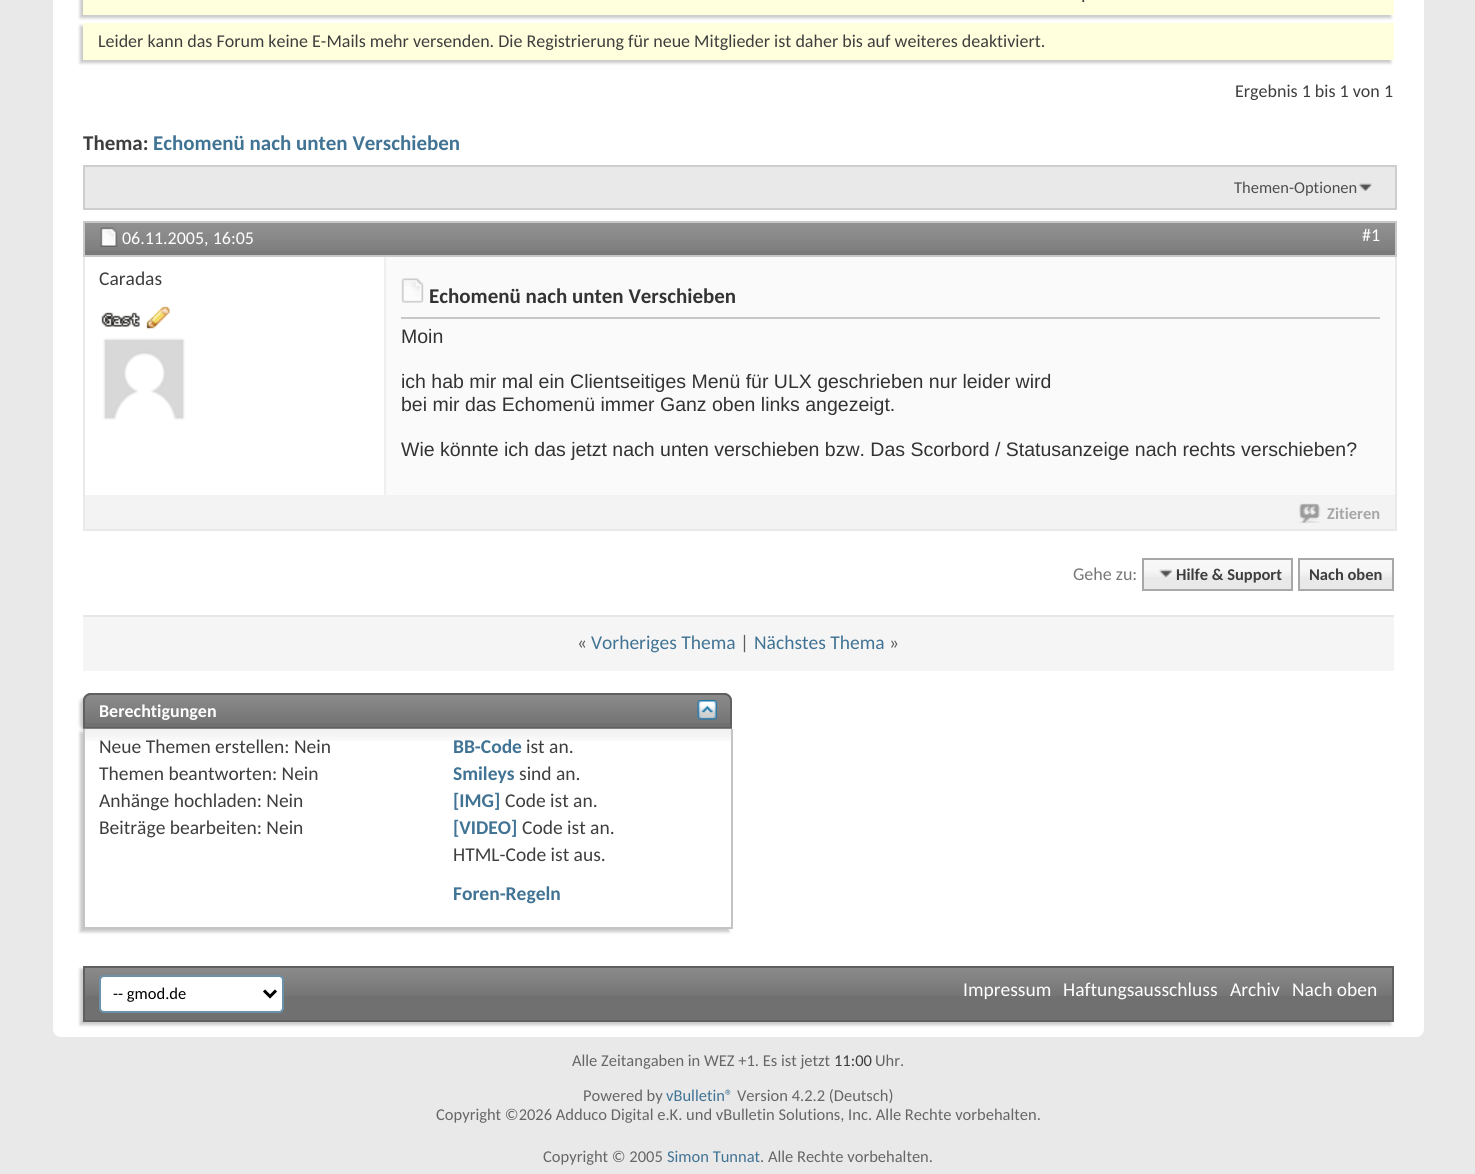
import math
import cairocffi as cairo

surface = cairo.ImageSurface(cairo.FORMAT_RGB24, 1475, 1174)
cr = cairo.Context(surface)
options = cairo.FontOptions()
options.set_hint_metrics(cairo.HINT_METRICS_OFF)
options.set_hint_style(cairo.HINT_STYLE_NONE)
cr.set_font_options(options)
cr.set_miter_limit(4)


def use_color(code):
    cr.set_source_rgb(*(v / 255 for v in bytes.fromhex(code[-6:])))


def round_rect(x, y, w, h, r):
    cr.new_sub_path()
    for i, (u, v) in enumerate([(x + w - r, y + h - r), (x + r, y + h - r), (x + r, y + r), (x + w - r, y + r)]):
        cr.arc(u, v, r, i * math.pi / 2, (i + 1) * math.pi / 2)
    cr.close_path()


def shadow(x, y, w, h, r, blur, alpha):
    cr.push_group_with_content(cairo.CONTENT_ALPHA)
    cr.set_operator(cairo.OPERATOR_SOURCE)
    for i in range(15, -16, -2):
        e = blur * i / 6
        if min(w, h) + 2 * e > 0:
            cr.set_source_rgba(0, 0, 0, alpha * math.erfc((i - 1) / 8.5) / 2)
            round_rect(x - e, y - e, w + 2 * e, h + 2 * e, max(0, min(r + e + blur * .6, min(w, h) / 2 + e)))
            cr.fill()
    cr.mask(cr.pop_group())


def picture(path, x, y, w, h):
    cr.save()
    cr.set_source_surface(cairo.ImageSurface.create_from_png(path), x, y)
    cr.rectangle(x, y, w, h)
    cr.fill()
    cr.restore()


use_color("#e9e9e9")
cr.paint()
use_color("#ffffff")
round_rect(53, -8, 1371, 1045, 8)
cr.fill()
use_color("#c8c8c8")
shadow(80, -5, 1311, 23, 0, 1.5, 1)
use_color("#ffffde")
cr.rectangle(83, 0, 1311, 15)
cr.fill()
cr.select_font_face("Carlito")
cr.set_font_size(18)
use_color("#3e3e3e")
cr.move_to(1081, 2)
cr.show_text(".")
use_color("#c8c8c8")
shadow(80, 26, 1311, 37, 0, 1.5, 1)
use_color("#ffffde")
cr.rectangle(83, 23, 1311, 37)
cr.fill()
use_color("#3e3e3e")
cr.move_to(98, 47)
cr.show_text("Leider kann das Forum keine E-Mails mehr versenden. Die Registrierung für neue Mitglieder ist daher bis auf weiteres deaktiviert.")
cr.move_to(1235, 97)
cr.show_text("Ergebnis 1 bis 1 von 1")
cr.select_font_face("Carlito", cairo.FONT_SLANT_NORMAL, cairo.FONT_WEIGHT_BOLD)
cr.set_font_size(21)
cr.move_to(83, 150)
cr.show_text("Thema:")
use_color("#417394")
cr.move_to(153, 150)
cr.show_text("Echomenü nach unten Verschieben")
use_color("#e9e9e9")
cr.rectangle(84, 166, 1312, 43)
cr.fill_preserve()
use_color("#cecece")
cr.stroke()
picture("img1.png", 1358, 183, 15, 8)
cr.select_font_face("Carlito")
cr.set_font_size(16.5)
use_color("#4e4e4e")
cr.move_to(1234, 193)
cr.show_text("Themen-Optionen")
cr.rectangle(84, 222, 1312, 308)
use_color("#e9e9e9")
cr.stroke()
use_color("#7a7a7a")
cr.rectangle(85, 223, 1310, 32)
cr.fill()
picture("img2.png", 85, 223, 1310, 28)
cr.rectangle(84, 222, 1312, 34)
use_color("#c8c8c8")
cr.stroke()
picture("img3.png", 100, 227, 18, 20)
cr.set_font_size(18)
use_color("#ffffff")
cr.move_to(122, 244)
cr.show_text("06.11.2005, 16:05")
cr.move_to(1362, 241)
cr.show_text("#1")
cr.set_font_size(19.5)
use_color("#3e3e3e")
cr.move_to(99, 285)
cr.show_text("Caradas")
picture("img4.png", 101, 306, 69, 23)
picture("img5.png", 103, 338, 82, 82)
use_color("#fafafa")
cr.rectangle(386, 257, 1009, 238)
cr.fill()
use_color("#efefef")
cr.rectangle(384, 257, 2, 238)
cr.fill()
use_color("#c8c8c8")
cr.rectangle(401, 317, 979, 2)
cr.fill()
picture("img6.png", 401, 278, 23, 25)
cr.select_font_face("Carlito", cairo.FONT_SLANT_NORMAL, cairo.FONT_WEIGHT_BOLD)
cr.set_font_size(21)
use_color("#333333")
cr.move_to(429, 303)
cr.show_text("Echomenü nach unten Verschieben")
cr.select_font_face("Liberation Sans")
cr.set_font_size(19.5)
cr.move_to(401, 343)
cr.show_text("Moin")
cr.move_to(401, 388)
cr.show_text("ich hab mir mal ein Clientseitiges Menü für ULX geschrieben nur leider wird")
cr.move_to(401, 411)
cr.show_text("bei mir das Echomenü immer Ganz oben links angezeigt.")
cr.move_to(401, 456)
cr.show_text("Wie könnte ich das jetzt nach unten verschieben bzw. Das Scorbord / Statusanzeige nach rechts verschieben?")
cr.set_source_rgba(0.914, 0.914, 0.914, 0.5)
cr.rectangle(85, 495, 1310, 34)
cr.fill()
picture("img7.png", 1299, 503, 22, 20)
cr.select_font_face("Carlito", cairo.FONT_SLANT_NORMAL, cairo.FONT_WEIGHT_BOLD)
cr.set_font_size(16.5)
use_color("#a7a7a7")
cr.move_to(1327, 519)
cr.show_text("Zitieren")
cr.select_font_face("Carlito")
cr.set_font_size(18)
use_color("#777777")
cr.move_to(1073, 580)
cr.show_text("Gehe zu:")
use_color("#e9e9e9")
cr.rectangle(1144, 560, 147, 29)
cr.fill()
picture("img8.png", 1144, 560, 147, 17)
cr.rectangle(1300, 560, 92, 29)
cr.fill()
picture("img9.png", 1300, 560, 92, 17)
cr.rectangle(1143, 559, 149, 31)
use_color("#a8a8a8")
cr.stroke()
picture("img10.png", 1159, 569, 14, 10)
cr.select_font_face("Carlito", cairo.FONT_SLANT_NORMAL, cairo.FONT_WEIGHT_BOLD)
cr.set_font_size(16.5)
use_color("#3e3e3e")
cr.move_to(1176, 580)
cr.show_text("Hilfe & Support")
cr.rectangle(1299, 559, 94, 31)
use_color("#a8a8a8")
cr.stroke()
use_color("#3e3e3e")
cr.move_to(1309, 580)
cr.show_text("Nach oben")
use_color("#f5f5f5")
cr.rectangle(83, 617, 1311, 54)
cr.fill()
use_color("#e7e7e7")
cr.rectangle(83, 615, 1311, 2)
cr.fill()
cr.select_font_face("Carlito")
cr.set_font_size(19.5)
use_color("#5d5d5d")
cr.move_to(577, 649)
cr.show_text("«")
use_color("#417394")
cr.move_to(591, 649)
cr.show_text("Vorheriges Thema")
use_color("#5d5d5d")
cr.move_to(740, 649)
cr.show_text("|")
use_color("#417394")
cr.move_to(754, 649)
cr.show_text("Nächstes Thema")
use_color("#5d5d5d")
cr.move_to(889, 649)
cr.show_text("»")
use_color("#c8c8c8")
shadow(80, 696, 649, 36, 8, 1.5, 1)
use_color("#707070")
cr.new_path()
cr.move_to(91, 693)
cr.line_to(724, 693)
cr.curve_to(728.5, 693, 732, 696.5, 732, 701)
cr.line_to(732, 729)
cr.line_to(83, 729)
cr.line_to(83, 701)
cr.curve_to(83, 696.5, 86.5, 693, 91, 693)
cr.close_path()
cr.fill()
picture("img11.png", 83, 694, 649, 29)
cr.new_path()
cr.move_to(91, 694)
cr.line_to(724, 694)
cr.curve_to(728, 694, 731, 697, 731, 701)
cr.line_to(731, 728)
cr.line_to(84, 728)
cr.line_to(84, 701)
cr.curve_to(84, 697, 87, 694, 91, 694)
cr.close_path()
use_color("#606060")
cr.stroke()
cr.select_font_face("Carlito", cairo.FONT_SLANT_NORMAL, cairo.FONT_WEIGHT_BOLD)
cr.set_font_size(18)
use_color("#ffffff")
cr.move_to(99, 717)
cr.show_text("Berechtigungen")
picture("img12.png", 697, 700, 20, 20)
use_color("#c8c8c8")
shadow(80, 732, 649, 200, 0, 1.5, 1)
use_color("#ffffff")
cr.rectangle(85, 729, 646, 198)
cr.fill()
picture("img13.png", 83, 728, 649, 13)
use_color("#c4c4c4")
cr.rectangle(731, 729, 2, 200)
cr.fill()
cr.rectangle(83, 927, 649, 2)
cr.fill()
cr.rectangle(83, 729, 2, 200)
cr.fill()
cr.select_font_face("Carlito")
cr.set_font_size(19.5)
use_color("#3e3e3e")
cr.move_to(99, 753)
cr.show_text("Neue Themen erstellen: Nein")
cr.move_to(99, 780)
cr.show_text("Themen beantworten: Nein")
cr.move_to(99, 807)
cr.show_text("Anhänge hochladen: Nein")
cr.move_to(99, 834)
cr.show_text("Beiträge bearbeiten: Nein")
cr.select_font_face("Carlito", cairo.FONT_SLANT_NORMAL, cairo.FONT_WEIGHT_BOLD)
use_color("#417394")
cr.move_to(453, 753)
cr.show_text("BB-Code")
cr.select_font_face("Carlito")
use_color("#3e3e3e")
cr.move_to(526, 753)
cr.show_text("ist an.")
cr.select_font_face("Carlito", cairo.FONT_SLANT_NORMAL, cairo.FONT_WEIGHT_BOLD)
use_color("#417394")
cr.move_to(453, 780)
cr.show_text("Smileys")
cr.select_font_face("Carlito")
use_color("#3e3e3e")
cr.move_to(519, 780)
cr.show_text("sind an.")
cr.select_font_face("Carlito", cairo.FONT_SLANT_NORMAL, cairo.FONT_WEIGHT_BOLD)
use_color("#417394")
cr.move_to(453, 807)
cr.show_text("[IMG]")
cr.select_font_face("Carlito")
use_color("#3e3e3e")
cr.move_to(505, 807)
cr.show_text("Code ist an.")
cr.select_font_face("Carlito", cairo.FONT_SLANT_NORMAL, cairo.FONT_WEIGHT_BOLD)
use_color("#417394")
cr.move_to(453, 834)
cr.show_text("[VIDEO]")
cr.select_font_face("Carlito")
use_color("#3e3e3e")
cr.move_to(522, 834)
cr.show_text("Code ist an.")
cr.move_to(453, 861)
cr.show_text("HTML-Code ist aus.")
cr.select_font_face("Carlito", cairo.FONT_SLANT_NORMAL, cairo.FONT_WEIGHT_BOLD)
use_color("#417394")
cr.move_to(453, 900)
cr.show_text("Foren-Regeln")
use_color("#c8c8c8")
shadow(80, 969, 1311, 56, 0, 1.5, 1)
use_color("#707070")
cr.rectangle(85, 968, 1307, 52)
cr.fill()
picture("img14.png", 85, 968, 1307, 28)
cr.rectangle(84, 967, 1309, 54)
use_color("#606060")
cr.stroke()
use_color("#ffffff")
round_rect(100, 976, 183, 36, 4)
cr.fill_preserve()
use_color("#6b91ab")
cr.stroke()
cr.new_path()
cr.move_to(264, 990.5)
cr.line_to(270, 996.5)
cr.line_to(276, 990.5)
use_color("#000000")
cr.set_line_width(3)
cr.stroke()
cr.select_font_face("Carlito")
cr.set_font_size(16.5)
cr.move_to(113, 999)
cr.show_text("-- gmod.de")
cr.set_font_size(19.5)
use_color("#ffffff")
cr.move_to(963, 996)
cr.show_text("Impressum")
cr.move_to(1063, 996)
cr.show_text("Haftungsausschluss")
cr.move_to(1230, 996)
cr.show_text("Archiv")
cr.move_to(1292, 996)
cr.show_text("Nach oben")
cr.set_font_size(16.5)
use_color("#666666")
cr.move_to(572, 1066)
cr.show_text("Alle Zeitangaben in WEZ +1. Es ist jetzt")
use_color("#3e3e3e")
cr.move_to(834, 1066)
cr.show_text("11:00")
use_color("#666666")
cr.move_to(875, 1066)
cr.show_text("Uhr.")
cr.move_to(583, 1101)
cr.show_text("Powered by")
use_color("#417394")
cr.move_to(666, 1101)
cr.show_text("vBulletin®")
use_color("#666666")
cr.move_to(737, 1101)
cr.show_text("Version 4.2.2 (Deutsch)")
cr.move_to(436, 1120)
cr.show_text("Copyright ©2026 Adduco Digital e.K. und vBulletin Solutions, Inc. Alle Rechte vorbehalten.")
cr.move_to(543, 1162)
cr.show_text("Copyright © 2005")
use_color("#417394")
cr.move_to(667, 1162)
cr.show_text("Simon Tunnat")
use_color("#666666")
cr.move_to(760, 1162)
cr.show_text(". Alle Rechte vorbehalten.")
surface.write_to_png("result.png")
